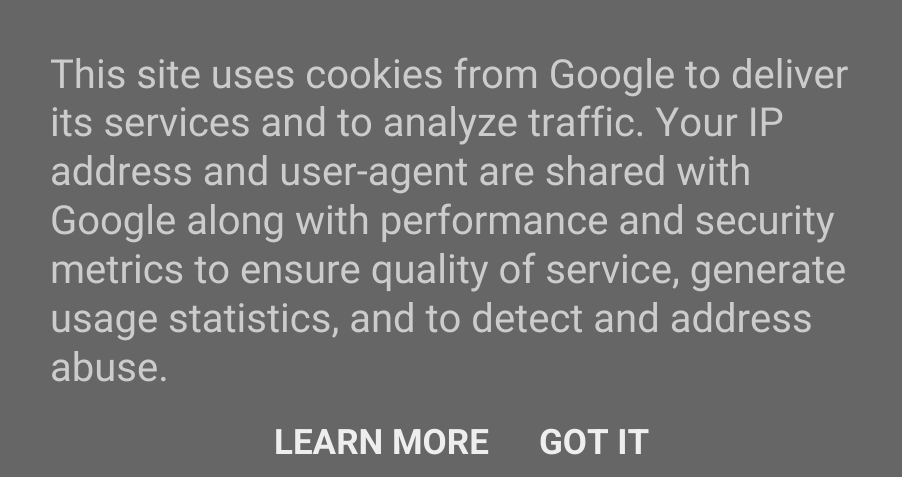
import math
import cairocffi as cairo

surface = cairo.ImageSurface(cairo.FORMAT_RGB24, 902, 477)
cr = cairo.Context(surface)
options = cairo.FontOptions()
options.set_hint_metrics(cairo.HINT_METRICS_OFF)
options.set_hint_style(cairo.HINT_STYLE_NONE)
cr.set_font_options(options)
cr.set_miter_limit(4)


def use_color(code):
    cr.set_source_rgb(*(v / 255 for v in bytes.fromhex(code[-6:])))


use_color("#666666")
cr.paint()
cr.select_font_face("Roboto")
cr.set_font_size(40)
use_color("#cccccc")
cr.move_to(50, 88)
cr.show_text("This site uses cookies from Google to deliver")
cr.move_to(50, 136)
cr.show_text("its services and to analyze traffic. Your IP")
cr.move_to(50, 185)
cr.show_text("address and user-agent are shared with")
cr.move_to(50, 234)
cr.show_text("Google along with performance and security")
cr.move_to(50, 283)
cr.show_text("metrics to ensure quality of service, generate")
cr.move_to(50, 332)
cr.show_text("usage statistics, and to detect and address")
cr.move_to(50, 381)
cr.show_text("abuse.")
cr.select_font_face("Roboto", cairo.FONT_SLANT_NORMAL, cairo.FONT_WEIGHT_BOLD)
cr.set_font_size(35)
use_color("#eeeeee")
cr.move_to(274, 454)
cr.show_text("LEARN MORE")
cr.move_to(539, 454)
cr.show_text("GOT IT")
surface.write_to_png("result.png")
